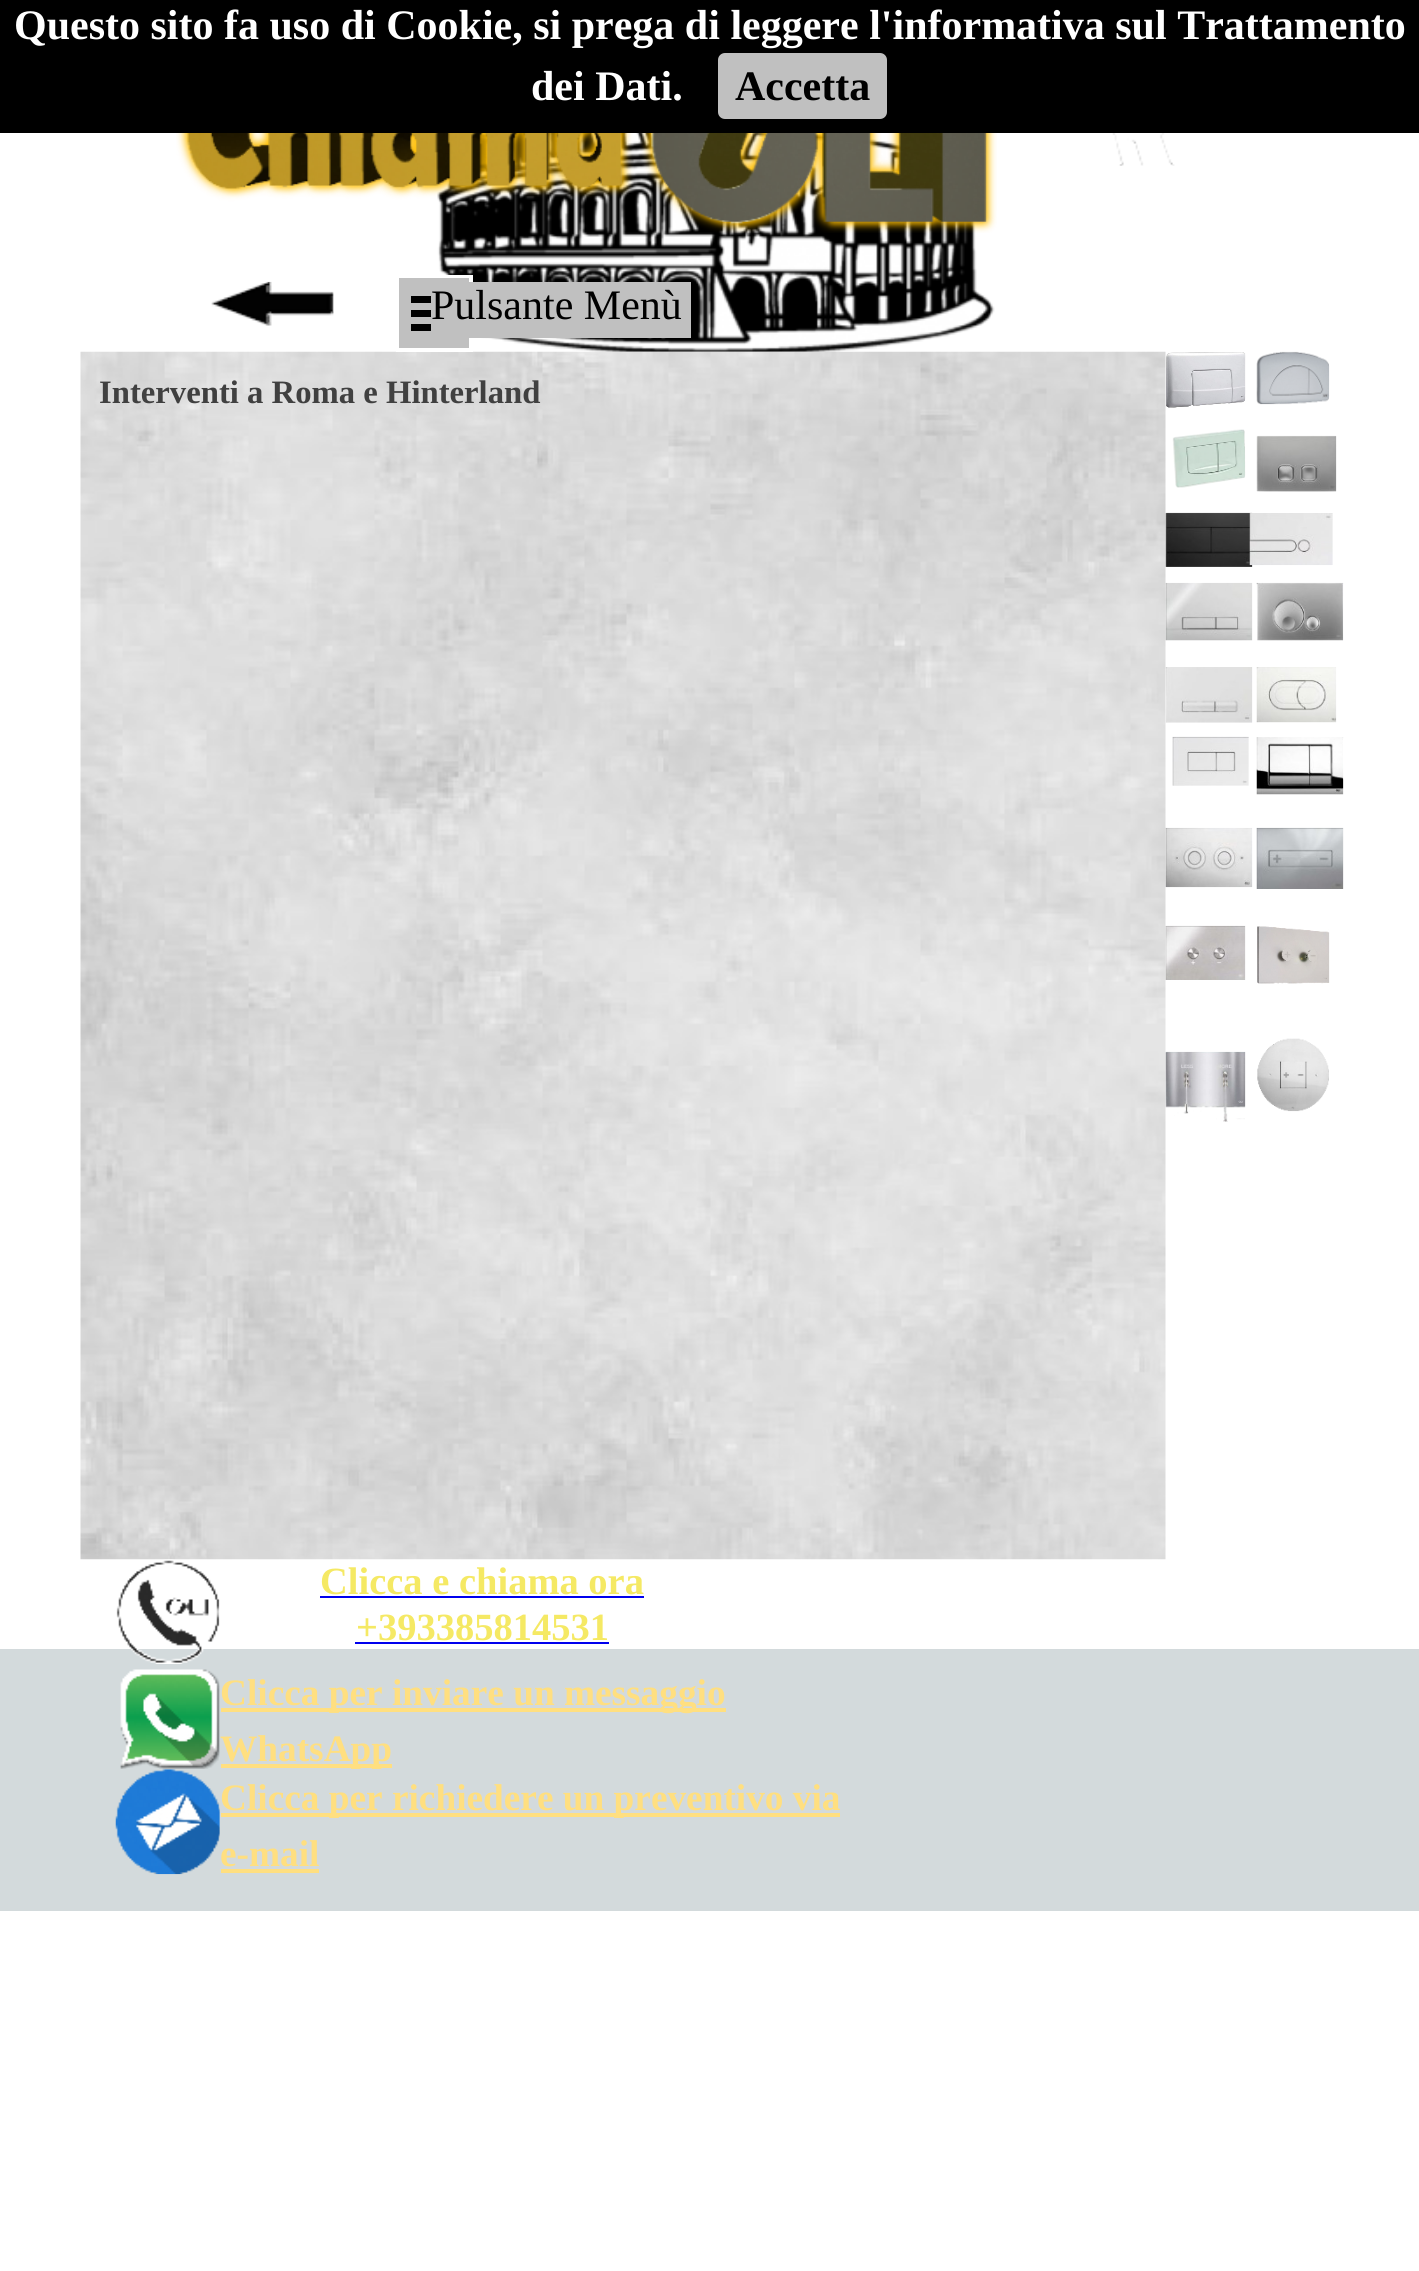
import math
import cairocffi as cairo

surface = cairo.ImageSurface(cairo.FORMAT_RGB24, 1419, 2271)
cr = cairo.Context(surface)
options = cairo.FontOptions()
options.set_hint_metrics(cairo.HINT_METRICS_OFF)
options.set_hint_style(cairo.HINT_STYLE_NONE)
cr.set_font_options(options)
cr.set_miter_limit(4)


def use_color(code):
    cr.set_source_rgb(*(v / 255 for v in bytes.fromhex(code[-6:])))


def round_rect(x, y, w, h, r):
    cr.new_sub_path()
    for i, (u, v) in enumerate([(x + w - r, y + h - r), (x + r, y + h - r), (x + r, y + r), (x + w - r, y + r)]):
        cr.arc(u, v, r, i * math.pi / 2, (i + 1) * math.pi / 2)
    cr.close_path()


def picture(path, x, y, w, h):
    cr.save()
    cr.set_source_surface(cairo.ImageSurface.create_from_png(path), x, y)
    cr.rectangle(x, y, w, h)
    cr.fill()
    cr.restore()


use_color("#ffffff")
cr.paint()
use_color("#000000")
cr.rectangle(0, 0, 1419, 133)
cr.fill()
cr.select_font_face("Liberation Serif", cairo.FONT_SLANT_NORMAL, cairo.FONT_WEIGHT_BOLD)
cr.set_font_size(42)
use_color("#ffffff")
cr.move_to(14, 39)
cr.show_text("Questo sito fa uso di Cookie, si prega di leggere l'informativa sul Trattamento")
cr.move_to(531, 100)
cr.show_text("dei Dati.")
use_color("#c0c0c0")
round_rect(718, 53, 169, 66, 7)
cr.fill()
use_color("#000000")
cr.move_to(735, 100)
cr.show_text("Accetta")
picture("img1.png", 437, 133, 558, 219)
picture("img2.png", 176, 133, 821, 100)
picture("img3.png", 1110, 133, 67, 33)
picture("img4.png", 211, 281, 123, 45)
picture("img5.png", 80, 351, 1086, 1209)
cr.rectangle(398, 277, 73, 73)
use_color("#ffffff")
cr.set_line_width(4)
cr.stroke()
use_color("#c0c0c0")
cr.rectangle(399, 278, 70, 70)
cr.fill()
use_color("#000000")
cr.rectangle(411, 296, 20, 7)
cr.fill()
cr.rectangle(411, 310, 20, 7)
cr.fill()
cr.rectangle(411, 324, 20, 7)
cr.fill()
use_color("#c0c0c0")
cr.rectangle(469, 282, 222, 56)
cr.fill()
cr.select_font_face("Liberation Serif")
use_color("#000000")
cr.move_to(431, 319)
cr.show_text("Pulsante Menù")
picture("img6.png", 1166, 352, 80, 56)
picture("img7.png", 1256, 351, 74, 54)
picture("img8.png", 1172, 429, 74, 59)
picture("img9.png", 1256, 435, 81, 57)
picture("img10.png", 1165, 512, 88, 55)
picture("img11.png", 1249, 513, 84, 53)
picture("img12.png", 1165, 582, 88, 59)
picture("img13.png", 1256, 582, 88, 59)
picture("img14.png", 1165, 667, 88, 56)
picture("img15.png", 1256, 667, 81, 56)
picture("img16.png", 1172, 736, 77, 50)
picture("img17.png", 1256, 737, 88, 58)
picture("img18.png", 1165, 827, 88, 61)
picture("img19.png", 1256, 827, 88, 62)
picture("img20.png", 1165, 925, 81, 55)
picture("img21.png", 1257, 926, 73, 58)
picture("img22.png", 1165, 1051, 81, 71)
picture("img23.png", 1257, 1038, 72, 74)
cr.select_font_face("Liberation Serif", cairo.FONT_SLANT_NORMAL, cairo.FONT_WEIGHT_BOLD)
cr.set_font_size(32.7)
use_color("#404040")
cr.move_to(99, 403)
cr.show_text("Interventi a Roma e Hinterland")
use_color("#d3dadc")
cr.rectangle(0, 1649, 1419, 262)
cr.fill()
picture("img24.png", 116, 1559, 104, 105)
cr.set_font_size(38.5)
use_color("#f5e964")
cr.move_to(320, 1594)
cr.show_text("Clicca e chiama ora")
use_color("#0000ee")
cr.rectangle(320, 1596, 324, 2)
cr.fill()
use_color("#f5e964")
cr.move_to(356, 1640)
cr.show_text("+393385814531")
use_color("#0000ee")
cr.rectangle(355, 1642, 254, 2)
cr.fill()
picture("img25.png", 120, 1669, 100, 100)
use_color("#ffdf80")
cr.rectangle(221, 1708, 505, 4)
cr.fill()
cr.set_font_size(37.3)
cr.move_to(220, 1705)
cr.show_text("Clicca per inviare un messaggio")
cr.rectangle(221, 1764, 171, 4)
cr.fill()
cr.move_to(220, 1761)
cr.show_text("WhatsApp")
picture("img26.png", 115, 1769, 105, 106)
cr.rectangle(221, 1813, 619, 4)
cr.fill()
cr.move_to(220, 1810)
cr.show_text("Clicca per richiedere un preventivo via")
cr.move_to(220, 1866)
cr.show_text("e-mail")
cr.rectangle(221, 1869, 98, 4)
cr.fill()
surface.write_to_png("result.png")
